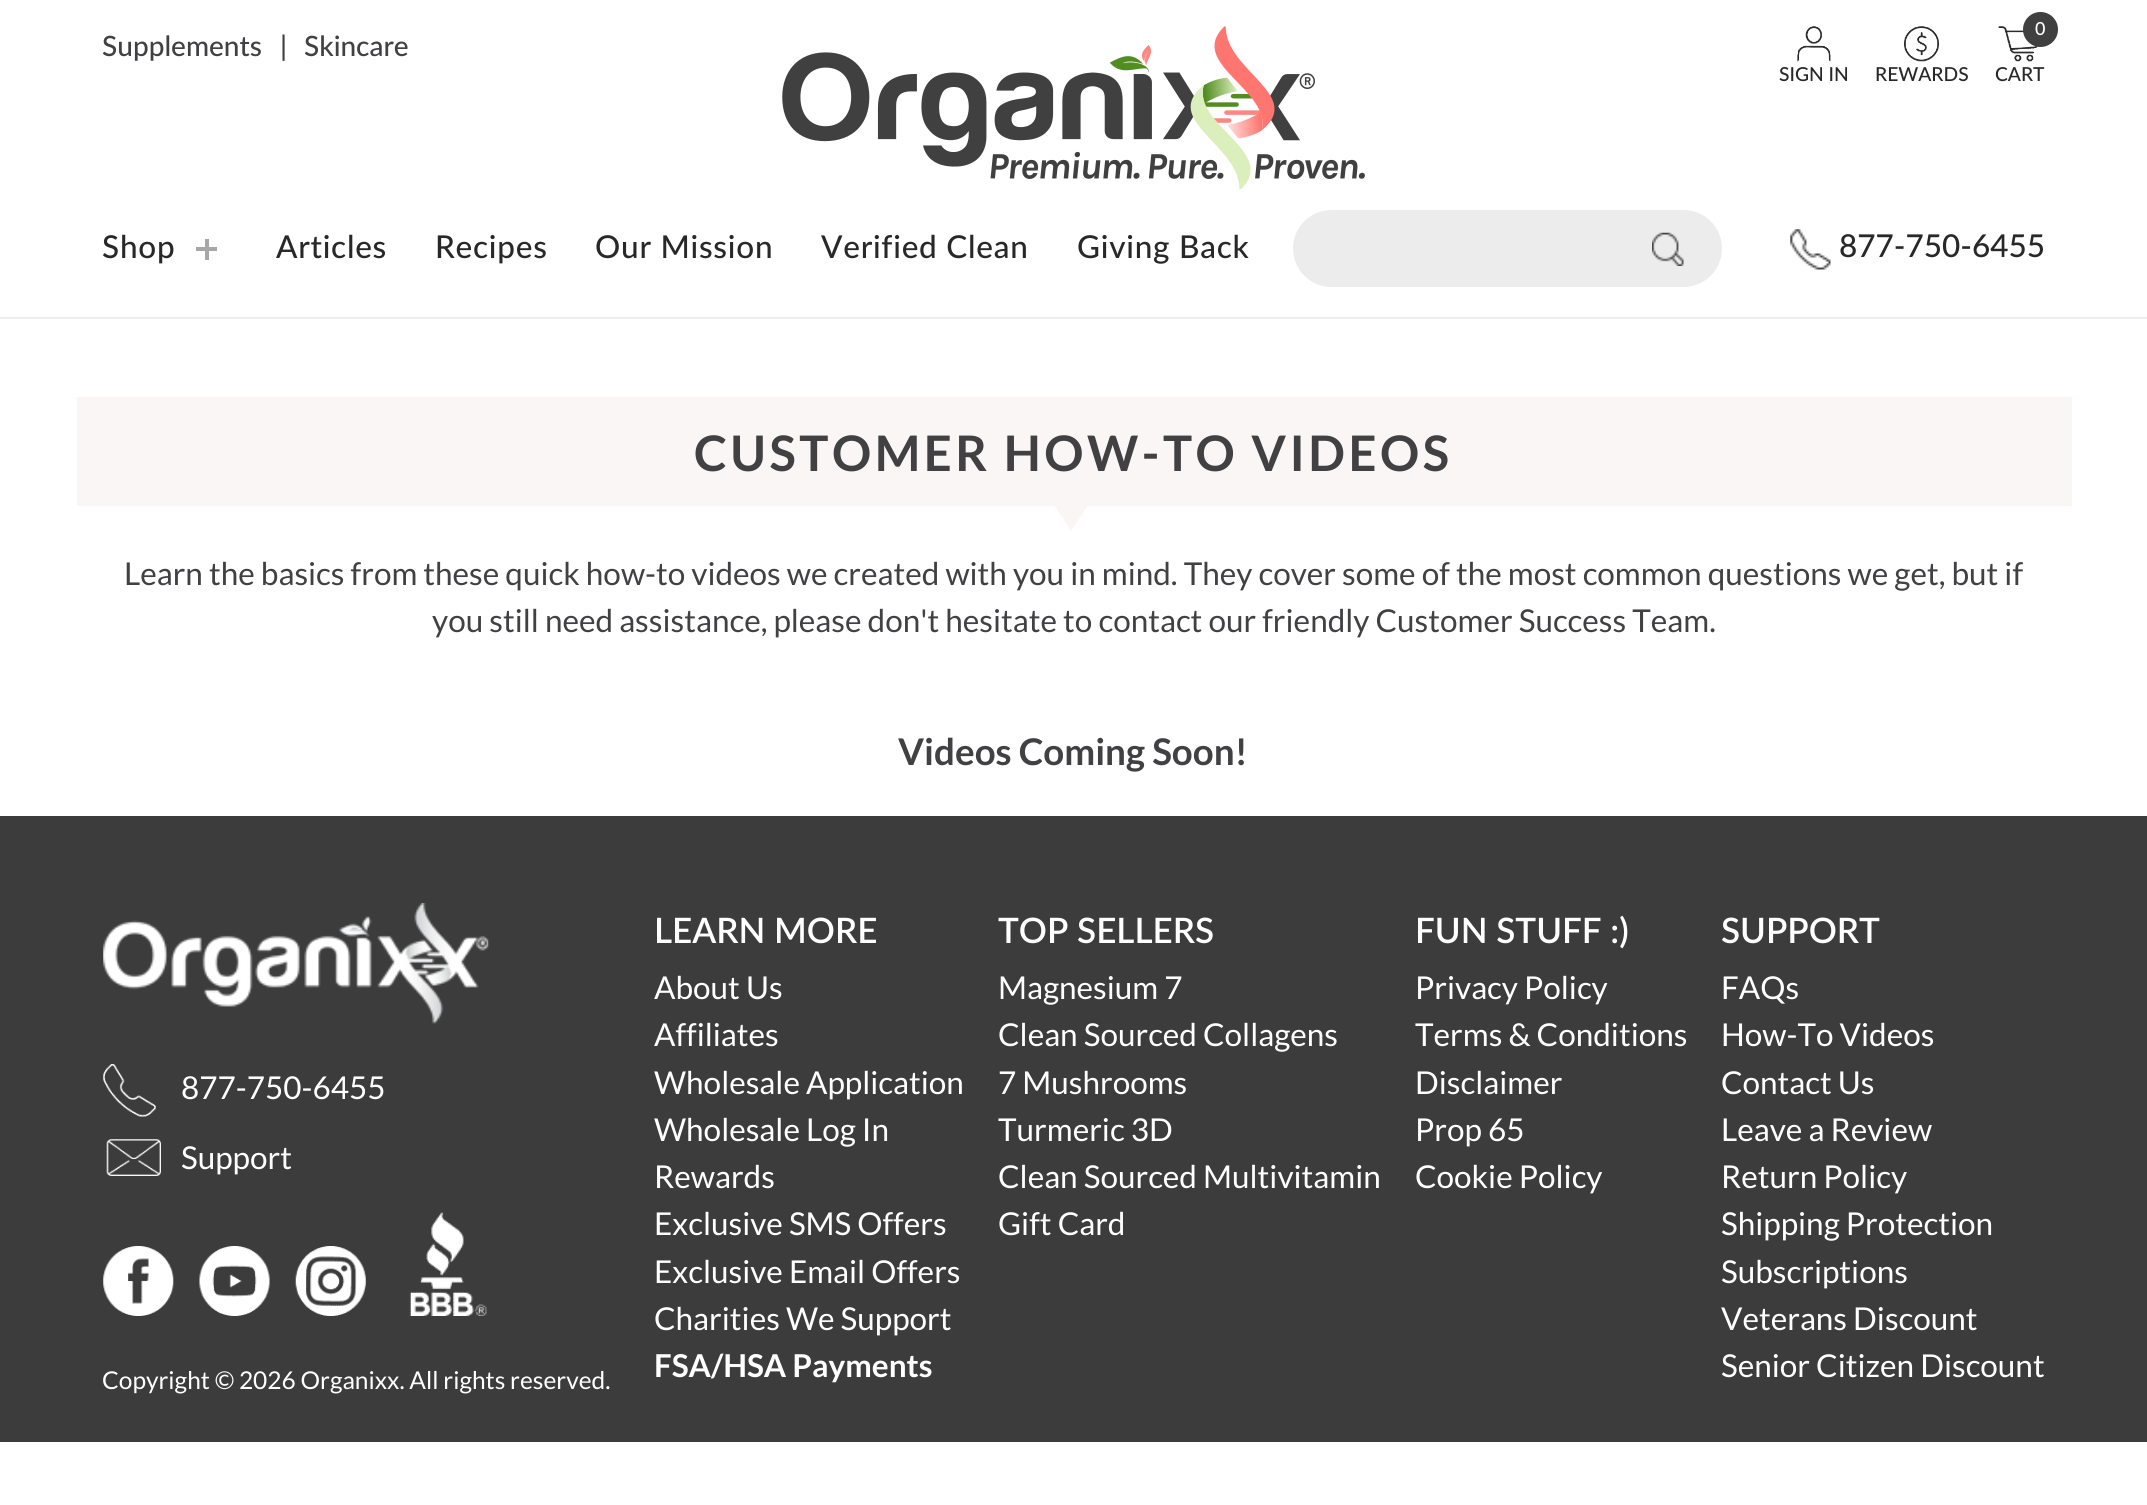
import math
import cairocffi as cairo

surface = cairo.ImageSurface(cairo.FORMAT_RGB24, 2147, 1505)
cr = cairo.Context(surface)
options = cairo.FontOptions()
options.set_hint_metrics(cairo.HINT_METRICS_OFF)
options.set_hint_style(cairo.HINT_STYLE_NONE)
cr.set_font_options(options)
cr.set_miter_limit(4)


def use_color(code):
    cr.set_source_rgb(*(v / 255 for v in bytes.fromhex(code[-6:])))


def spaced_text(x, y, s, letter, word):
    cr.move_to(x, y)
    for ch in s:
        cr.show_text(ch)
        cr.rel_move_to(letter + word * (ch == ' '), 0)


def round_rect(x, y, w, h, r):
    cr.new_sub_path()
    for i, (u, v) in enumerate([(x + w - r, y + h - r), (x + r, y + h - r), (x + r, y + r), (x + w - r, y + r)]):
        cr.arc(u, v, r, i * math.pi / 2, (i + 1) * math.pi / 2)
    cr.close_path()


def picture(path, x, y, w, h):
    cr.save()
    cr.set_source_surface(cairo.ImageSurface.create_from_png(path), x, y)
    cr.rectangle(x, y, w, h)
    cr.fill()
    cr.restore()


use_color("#ffffff")
cr.paint()
use_color("#eeeeee")
cr.rectangle(0, 317, 2147, 2)
cr.fill()
cr.select_font_face("Lato Medium")
cr.set_font_size(28)
use_color("#414042")
cr.move_to(102, 56)
cr.show_text("Supplements")
cr.move_to(280, 56)
cr.show_text("|")
cr.move_to(304, 56)
cr.show_text("Skincare")
picture("img1.png", 782, 26, 583, 163)
picture("img2.png", 1797, 26, 34, 36)
cr.set_font_size(19.25)
use_color("#282828")
cr.move_to(1779, 81)
cr.show_text("SIGN IN")
picture("img3.png", 1904, 26, 35, 36)
cr.move_to(1875, 81)
cr.show_text("REWARDS")
picture("img4.png", 1998, 26, 40, 36)
use_color("#404041")
cr.arc(2040.5, 29.5, 17.5, 0, 2 * math.pi)
cr.fill()
cr.set_font_size(18)
use_color("#ffffff")
cr.move_to(2035, 35)
cr.show_text("0")
cr.set_font_size(19.25)
use_color("#282828")
cr.move_to(1995, 81)
cr.show_text("CART")
cr.set_font_size(31.5)
spaced_text(102, 258, "Shop", 0.75, 0)
use_color("#a7a7a7")
cr.rectangle(196, 247, 21, 4)
cr.fill()
cr.rectangle(205, 239, 4, 21)
cr.fill()
use_color("#282828")
spaced_text(276, 258, "Articles", 0.75, 0)
spaced_text(435, 258, "Recipes", 0.75, 0)
spaced_text(595, 258, "Our Mission", 0.75, 0)
spaced_text(821, 258, "Verified Clean", 0.75, 0)
spaced_text(1077, 258, "Giving Back", 0.75, 0)
use_color("#ececec")
round_rect(1293, 210, 429, 77, 38.5)
cr.fill()
picture("img5.png", 1652, 232, 32, 34)
picture("img6.png", 1790, 229, 41, 41)
use_color("#282828")
cr.move_to(1839, 257)
cr.show_text("877-750-6455")
use_color("#faf6f5")
cr.rectangle(77, 397, 1995, 109)
cr.fill()
cr.select_font_face("Lato", cairo.FONT_SLANT_NORMAL, cairo.FONT_WEIGHT_BOLD)
cr.set_font_size(49)
use_color("#414042")
spaced_text(694, 471, "CUSTOMER HOW-TO VIDEOS", 3.5, 0)
use_color("#faf6f5")
cr.new_path()
cr.move_to(1053.5, 504.5)
cr.line_to(1088.5, 504.5)
cr.line_to(1071, 531)
cr.close_path()
cr.fill()
cr.select_font_face("Lato")
cr.set_font_size(31.5)
use_color("#414042")
cr.move_to(124, 585)
cr.show_text("Learn the basics from these quick how-to videos we created with you in mind. They cover some of the most common questions we get, but if")
cr.move_to(432, 632)
cr.show_text("you still need assistance, please don't hesitate to contact our friendly Customer Success Team.")
cr.select_font_face("Lato", cairo.FONT_SLANT_NORMAL, cairo.FONT_WEIGHT_BOLD)
cr.set_font_size(36.75)
cr.move_to(898, 765)
cr.show_text("Videos Coming Soon!")
use_color("#3c3c3c")
cr.rectangle(0, 816, 2147, 626)
cr.fill()
picture("img7.png", 103, 903, 386, 121)
cr.select_font_face("Lato SemiBold")
cr.set_font_size(35)
use_color("#ffffff")
cr.move_to(654, 943)
cr.show_text("LEARN MORE")
cr.select_font_face("Lato")
cr.set_font_size(31.5)
cr.move_to(654, 999)
cr.show_text("About Us")
cr.move_to(654, 1046)
cr.show_text("Affiliates")
cr.move_to(654, 1094)
cr.show_text("Wholesale Application")
cr.move_to(654, 1141)
cr.show_text("Wholesale Log In")
cr.move_to(654, 1188)
cr.show_text("Rewards")
cr.move_to(654, 1235)
cr.show_text("Exclusive SMS Offers")
cr.move_to(654, 1283)
cr.show_text("Exclusive Email Offers")
cr.move_to(654, 1330)
cr.show_text("Charities We Support")
cr.select_font_face("Lato", cairo.FONT_SLANT_NORMAL, cairo.FONT_WEIGHT_BOLD)
cr.move_to(654, 1377)
cr.show_text("FSA/HSA Payments")
cr.select_font_face("Lato SemiBold")
cr.set_font_size(35)
cr.move_to(998, 943)
cr.show_text("TOP SELLERS")
cr.select_font_face("Lato")
cr.set_font_size(31.5)
cr.move_to(998, 999)
cr.show_text("Magnesium 7")
cr.move_to(998, 1046)
cr.show_text("Clean Sourced Collagens")
cr.move_to(998, 1094)
cr.show_text("7 Mushrooms")
cr.move_to(998, 1141)
cr.show_text("Turmeric 3D")
cr.move_to(998, 1188)
cr.show_text("Clean Sourced Multivitamin")
cr.move_to(998, 1235)
cr.show_text("Gift Card")
cr.select_font_face("Lato SemiBold")
cr.set_font_size(35)
cr.move_to(1415, 943)
cr.show_text("FUN STUFF :)")
cr.select_font_face("Lato")
cr.set_font_size(31.5)
cr.move_to(1415, 999)
cr.show_text("Privacy Policy")
cr.move_to(1415, 1046)
cr.show_text("Terms & Conditions")
cr.move_to(1415, 1094)
cr.show_text("Disclaimer")
cr.move_to(1415, 1141)
cr.show_text("Prop 65")
cr.move_to(1415, 1188)
cr.show_text("Cookie Policy")
cr.select_font_face("Lato SemiBold")
cr.set_font_size(35)
cr.move_to(1721, 943)
cr.show_text("SUPPORT")
cr.select_font_face("Lato")
cr.set_font_size(31.5)
cr.move_to(1721, 999)
cr.show_text("FAQs")
cr.move_to(1721, 1046)
cr.show_text("How-To Videos")
cr.move_to(1721, 1094)
cr.show_text("Contact Us")
cr.move_to(1721, 1141)
cr.show_text("Leave a Review")
cr.move_to(1721, 1188)
cr.show_text("Return Policy")
cr.move_to(1721, 1235)
cr.show_text("Shipping Protection")
cr.move_to(1721, 1283)
cr.show_text("Subscriptions")
cr.move_to(1721, 1330)
cr.show_text("Veterans Discount")
cr.move_to(1721, 1377)
cr.show_text("Senior Citizen Discount")
picture("img8.png", 103, 1064, 53, 53)
cr.move_to(181, 1099)
cr.show_text("877-750-6455")
picture("img9.png", 106, 1139, 55, 37)
cr.move_to(181, 1169)
cr.show_text("Support")
picture("img10.png", 103, 1246, 71, 70)
picture("img11.png", 199, 1246, 71, 70)
picture("img12.png", 295, 1246, 71, 70)
picture("img13.png", 409, 1212, 78, 104)
cr.set_font_size(24.5)
cr.move_to(102, 1389)
cr.show_text("Copyright © 2026 Organixx. All rights reserved.")
surface.write_to_png("result.png")
